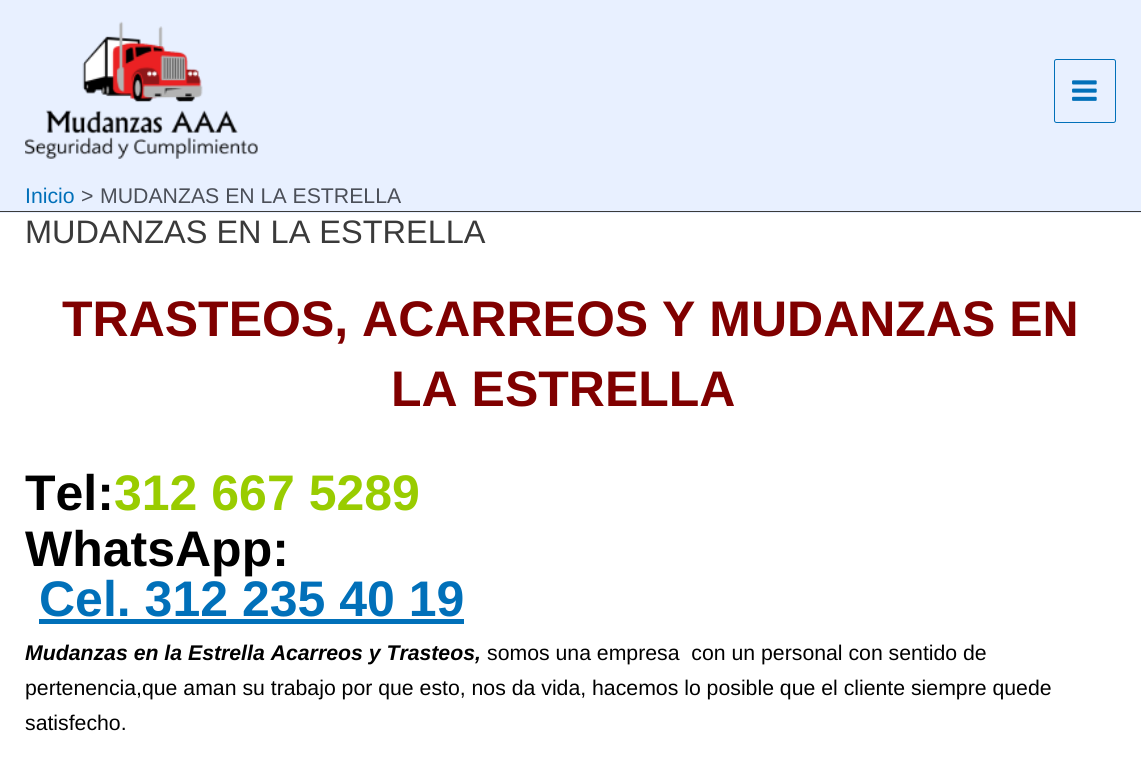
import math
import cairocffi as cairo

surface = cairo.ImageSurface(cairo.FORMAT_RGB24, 1141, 773)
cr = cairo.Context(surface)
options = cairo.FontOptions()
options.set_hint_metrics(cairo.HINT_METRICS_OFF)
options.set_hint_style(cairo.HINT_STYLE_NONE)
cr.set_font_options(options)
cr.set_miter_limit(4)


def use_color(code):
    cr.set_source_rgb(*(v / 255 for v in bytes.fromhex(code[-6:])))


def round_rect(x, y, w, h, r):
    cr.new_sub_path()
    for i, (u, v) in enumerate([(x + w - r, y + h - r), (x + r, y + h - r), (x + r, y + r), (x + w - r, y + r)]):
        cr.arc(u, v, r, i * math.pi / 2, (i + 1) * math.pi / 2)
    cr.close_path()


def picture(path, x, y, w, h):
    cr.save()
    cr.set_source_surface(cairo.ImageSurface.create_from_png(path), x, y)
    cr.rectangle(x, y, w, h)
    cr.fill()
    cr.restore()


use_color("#ffffff")
cr.paint()
use_color("#e8f0ff")
cr.rectangle(0, 0, 1141, 213)
cr.fill()
use_color("#3a3a3a")
cr.rectangle(0, 211, 1141, 1)
cr.fill()
picture("img1.png", 25, 21, 233, 138)
round_rect(1054.5, 59.5, 61, 63, 2)
use_color("#0170b9")
cr.set_line_width(1)
cr.stroke()
picture("img2.png", 1072, 80, 25, 21)
cr.select_font_face("Liberation Sans")
cr.set_font_size(21.25)
cr.move_to(25, 203)
cr.show_text("Inicio")
use_color("#4b4f58")
cr.move_to(81, 203)
cr.show_text(">")
cr.move_to(100, 203)
cr.show_text("MUDANZAS EN LA ESTRELLA")
cr.set_font_size(32.5)
use_color("#3a3a3a")
cr.move_to(25, 243)
cr.show_text("MUDANZAS EN LA ESTRELLA")
cr.select_font_face("Liberation Sans", cairo.FONT_SLANT_NORMAL, cairo.FONT_WEIGHT_BOLD)
cr.set_font_size(50)
use_color("#800000")
cr.move_to(62, 336)
cr.show_text("TRASTEOS, ACARREOS Y MUDANZAS EN")
cr.move_to(391, 406)
cr.show_text("LA ESTRELLA")
use_color("#000000")
cr.move_to(25, 510)
cr.show_text("Tel:")
use_color("#99cc00")
cr.move_to(114, 510)
cr.show_text("312 667 5289")
use_color("#000000")
cr.move_to(25, 566)
cr.show_text("WhatsApp:")
use_color("#0170b9")
cr.move_to(39, 616)
cr.show_text("Cel. 312 235 40 19")
cr.rectangle(39, 619, 425, 5)
cr.fill()
cr.select_font_face("Liberation Sans", cairo.FONT_SLANT_ITALIC, cairo.FONT_WEIGHT_BOLD)
cr.set_font_size(21.25)
use_color("#000000")
cr.move_to(25, 660)
cr.show_text("Mudanzas en la Estrella Acarreos y Trasteos,")
cr.select_font_face("Liberation Sans")
cr.move_to(487, 660)
cr.show_text("somos una empresa  con un personal con sentido de")
cr.move_to(25, 695)
cr.show_text("pertenencia,que aman su trabajo por que esto, nos da vida, hacemos lo posible que el cliente siempre quede")
cr.move_to(25, 730)
cr.show_text("satisfecho.")
surface.write_to_png("result.png")
